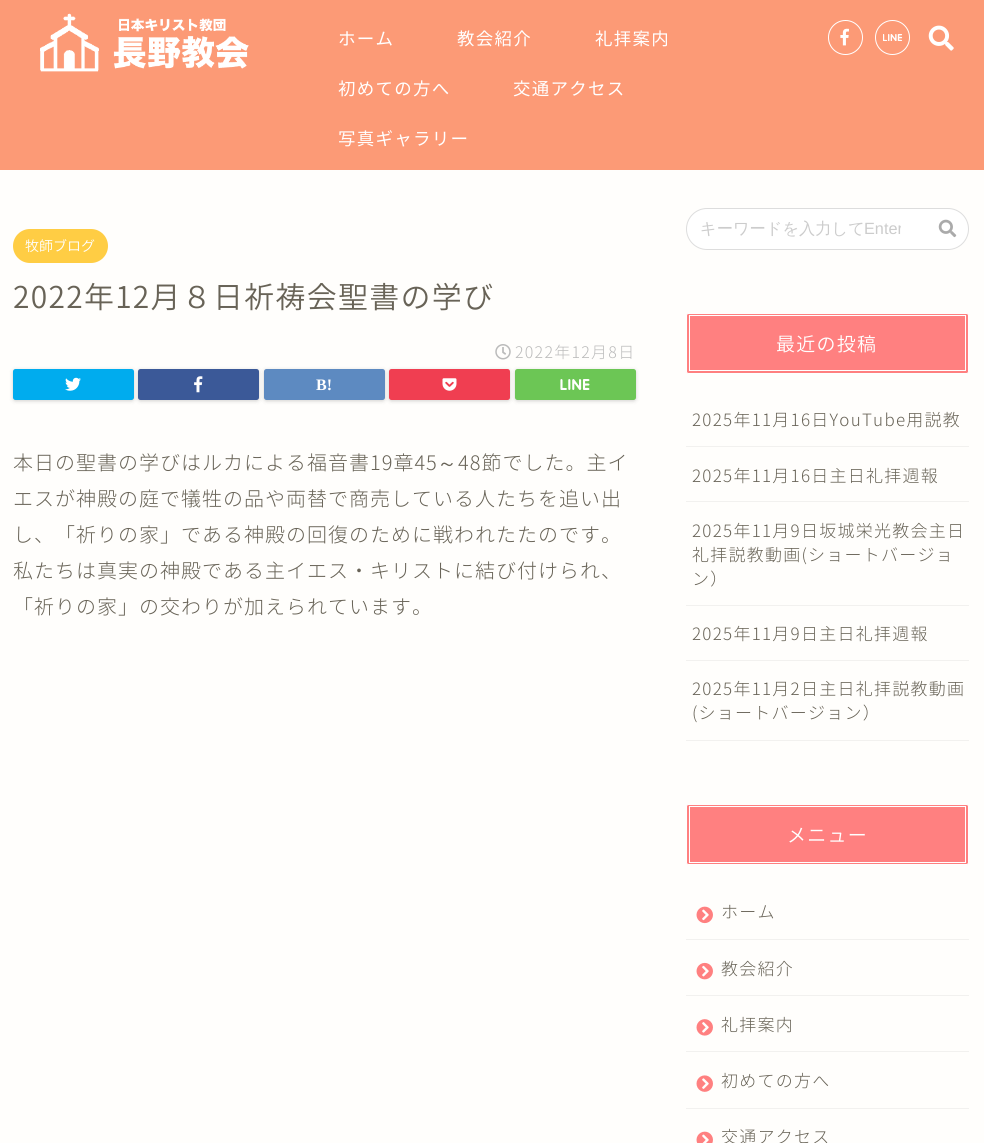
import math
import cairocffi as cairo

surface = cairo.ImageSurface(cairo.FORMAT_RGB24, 984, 1143)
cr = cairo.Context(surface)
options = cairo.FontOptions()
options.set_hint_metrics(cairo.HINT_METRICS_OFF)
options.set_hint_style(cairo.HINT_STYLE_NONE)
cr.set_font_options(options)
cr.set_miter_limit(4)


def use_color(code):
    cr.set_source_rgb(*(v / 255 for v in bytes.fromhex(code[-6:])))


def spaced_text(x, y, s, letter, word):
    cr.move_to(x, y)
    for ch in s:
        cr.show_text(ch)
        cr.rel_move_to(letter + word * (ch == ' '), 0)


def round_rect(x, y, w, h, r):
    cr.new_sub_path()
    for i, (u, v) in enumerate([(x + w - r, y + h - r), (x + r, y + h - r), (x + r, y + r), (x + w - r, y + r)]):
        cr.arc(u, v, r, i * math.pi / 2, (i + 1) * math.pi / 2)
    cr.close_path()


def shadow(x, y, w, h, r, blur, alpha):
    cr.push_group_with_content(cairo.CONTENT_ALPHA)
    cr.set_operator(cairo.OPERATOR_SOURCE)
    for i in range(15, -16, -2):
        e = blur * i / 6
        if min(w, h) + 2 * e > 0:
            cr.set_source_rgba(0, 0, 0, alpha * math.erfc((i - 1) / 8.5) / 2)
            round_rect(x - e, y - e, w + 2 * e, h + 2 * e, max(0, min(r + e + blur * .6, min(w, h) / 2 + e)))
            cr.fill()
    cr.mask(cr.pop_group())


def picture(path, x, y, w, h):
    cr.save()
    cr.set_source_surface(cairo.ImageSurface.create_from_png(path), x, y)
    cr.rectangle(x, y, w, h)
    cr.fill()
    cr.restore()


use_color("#fffefc")
cr.paint()
use_color("#fc9a76")
cr.rectangle(0, 0, 984, 170)
cr.fill()
picture("img1.png", 40, 13, 209, 59)
cr.select_font_face("Noto Sans JP")
cr.set_font_size(17.5)
use_color("#ffffff")
spaced_text(338, 45, "ホーム", 1.25, 0)
spaced_text(457, 45, "教会紹介", 1.25, 0)
spaced_text(595, 45, "礼拝案内", 1.25, 0)
spaced_text(338, 95, "初めての方へ", 1.25, 0)
spaced_text(513, 95, "交通アクセス", 1.25, 0)
spaced_text(338, 145, "写真ギャラリー", 1.25, 0)
cr.new_path()
cr.arc(845.5, 37.5, 17, 0, 2 * math.pi)
cr.set_line_width(1)
cr.stroke()
picture("img2.png", 840, 28, 9, 18)
cr.arc(892.5, 37.5, 17, 0, 2 * math.pi)
cr.stroke()
picture("img3.png", 883, 34, 20, 7)
picture("img4.png", 928, 25, 26, 26)
use_color("#ffcd44")
round_rect(13, 229, 95, 34, 17)
cr.fill()
cr.select_font_face("Noto Sans JP Light")
cr.set_font_size(14)
use_color("#ffffff")
cr.move_to(25, 251)
cr.show_text("牧師ブログ")
cr.set_font_size(30)
use_color("#686357")
spaced_text(13, 308, "2022年12月８日祈祷会聖書の学び", 1.25, 0)
picture("img5.png", 495, 344, 16, 16)
cr.select_font_face("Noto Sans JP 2 Light")
cr.set_font_size(16)
use_color("#bbbbbb")
spaced_text(515, 358, "2022年12月8日", 1.25, 0)
use_color("#000000")
shadow(13, 370, 121, 31, 2.5, 2, 0.18)
use_color("#00acee")
round_rect(14.5, 370.5, 118, 28, 1)
cr.fill_preserve()
cr.set_line_width(3)
cr.stroke()
picture("img6.png", 65, 377, 16, 14)
use_color("#000000")
shadow(138, 370, 121, 31, 2.5, 2, 0.18)
use_color("#3b5998")
round_rect(139.5, 370.5, 118, 28, 1)
cr.fill_preserve()
cr.stroke()
picture("img7.png", 194, 376, 9, 17)
use_color("#000000")
shadow(264, 370, 121, 31, 2.5, 2, 0.18)
use_color("#5d8ac1")
round_rect(265.5, 370.5, 118, 28, 1)
cr.fill_preserve()
cr.stroke()
cr.select_font_face("Liberation Serif", cairo.FONT_SLANT_NORMAL, cairo.FONT_WEIGHT_BOLD)
use_color("#ffffff")
cr.move_to(316, 390)
cr.show_text("B!")
use_color("#000000")
shadow(389, 370, 121, 31, 2.5, 2, 0.18)
use_color("#f03e51")
round_rect(390.5, 370.5, 118, 28, 1)
cr.fill_preserve()
cr.stroke()
picture("img8.png", 442, 378, 15, 13)
use_color("#000000")
shadow(515, 370, 121, 31, 2.5, 2, 0.18)
use_color("#6cc655")
round_rect(516.5, 370.5, 118, 28, 1)
cr.fill_preserve()
cr.stroke()
picture("img9.png", 560, 379, 30, 11)
cr.select_font_face("Noto Sans JP 2 Light")
cr.set_font_size(20)
use_color("#686357")
spaced_text(13, 470, "本日の聖書の学びはルカによる福音書19章45", 1, 0)
cr.select_font_face("WenQuanYi Zen Hei Medium")
spaced_text(437, 470, "～", 1, 0)
cr.select_font_face("Noto Sans JP 2 Light")
spaced_text(458, 470, "48節でした。主イ", 1, 0)
spaced_text(13, 506, "エスが神殿の庭で犠牲の品や両替で商売している人たちを追い出", 1, 0)
spaced_text(13, 542, "し、「祈りの家」である神殿の回復のために戦われたたのです。", 1, 0)
spaced_text(13, 578, "私たちは真実の神殿である主イエス・キリストに結び付けられ、", 1, 0)
spaced_text(13, 614, "「祈りの家」の交わりが加えられています。", 1, 0)
use_color("#ffffff")
round_rect(686.5, 208.5, 282, 41, 20.5)
cr.fill_preserve()
use_color("#dddddd")
cr.set_line_width(1)
cr.stroke()
cr.select_font_face("WenQuanYi Zen Hei Medium")
cr.set_font_size(16.25)
use_color("#cccccc")
cr.move_to(700, 234)
cr.show_text("キーワードを入力して")
cr.save()
cr.rectangle(700, 219, 201, 22)
cr.clip()
cr.select_font_face("Liberation Sans")
cr.move_to(864, 234)
cr.show_text("Enter")
cr.restore()
picture("img10.png", 938, 219, 19, 19)
use_color("#ff8080")
round_rect(686.5, 313.5, 282, 60, 2)
cr.fill_preserve()
use_color("#ffffff")
cr.stroke()
cr.rectangle(689.5, 315.5, 276, 55)
cr.stroke()
cr.select_font_face("Noto Sans JP Light")
cr.set_font_size(19)
spaced_text(776, 351, "最近の投稿", 1.25, 0)
use_color("#f2f1ef")
cr.rectangle(686, 446, 283, 1)
cr.fill()
cr.select_font_face("Noto Sans JP 2 Light")
cr.set_font_size(17)
use_color("#686357")
spaced_text(692, 426, "2025年11月16日YouTube用説教", 1.25, 0)
use_color("#f2f1ef")
cr.rectangle(686, 501, 283, 1)
cr.fill()
use_color("#686357")
spaced_text(692, 482, "2025年11月16日主日礼拝週報", 1.25, 0)
use_color("#f2f1ef")
cr.rectangle(686, 605, 283, 1)
cr.fill()
use_color("#686357")
spaced_text(692, 537, "2025年11月9日坂城栄光教会主日", 1.25, 0)
spaced_text(692, 561, "礼拝説教動画(ショートバージョ", 1.25, 0)
spaced_text(692, 585, "ン）", 1.25, 0)
use_color("#f2f1ef")
cr.rectangle(686, 660, 283, 1)
cr.fill()
use_color("#686357")
spaced_text(692, 640, "2025年11月9日主日礼拝週報", 1.25, 0)
use_color("#f2f1ef")
cr.rectangle(686, 740, 283, 1)
cr.fill()
use_color("#686357")
spaced_text(692, 695, "2025年11月2日主日礼拝説教動画", 1.25, 0)
spaced_text(692, 719, "(ショートバージョン）", 1.25, 0)
use_color("#ff8080")
round_rect(686.5, 804.5, 282, 60, 2)
cr.fill_preserve()
use_color("#ffffff")
cr.stroke()
cr.rectangle(689.5, 806.5, 276, 56)
cr.stroke()
cr.select_font_face("Noto Sans JP Light")
cr.set_font_size(19)
spaced_text(787, 842, "メニュー", 1.25, 0)
use_color("#f2f1ef")
cr.rectangle(686, 939, 283, 1)
cr.fill()
picture("img11.png", 696, 906, 17, 18)
cr.select_font_face("Noto Sans JP 2 Light")
cr.set_font_size(17)
use_color("#686357")
spaced_text(721, 918, "ホーム", 1.25, 0)
use_color("#f2f1ef")
cr.rectangle(686, 995, 283, 1)
cr.fill()
picture("img12.png", 696, 962, 17, 18)
use_color("#686357")
spaced_text(721, 975, "教会紹介", 1.25, 0)
use_color("#f2f1ef")
cr.rectangle(686, 1051, 283, 1)
cr.fill()
picture("img13.png", 696, 1019, 17, 17)
use_color("#686357")
spaced_text(721, 1031, "礼拝案内", 1.25, 0)
use_color("#f2f1ef")
cr.rectangle(686, 1108, 283, 1)
cr.fill()
picture("img14.png", 696, 1075, 17, 17)
use_color("#686357")
spaced_text(721, 1087, "初めての方へ", 1.25, 0)
picture("img15.png", 696, 1131, 17, 12)
spaced_text(721, 1143, "交通アクセス", 1.25, 0)
surface.write_to_png("result.png")
